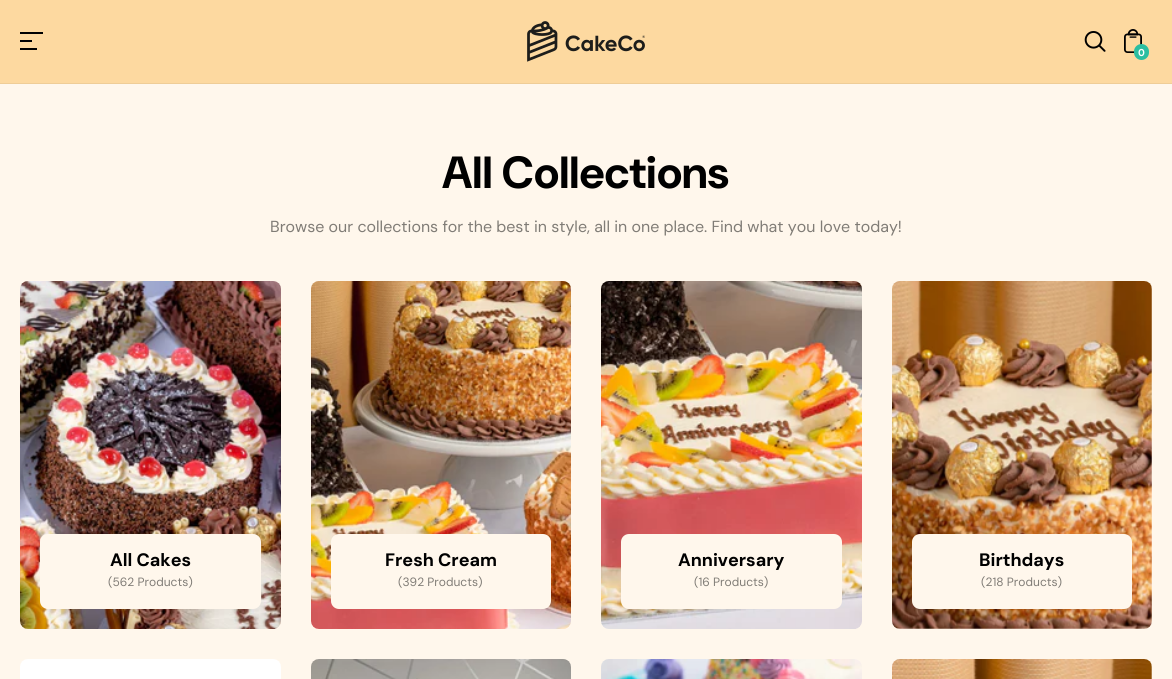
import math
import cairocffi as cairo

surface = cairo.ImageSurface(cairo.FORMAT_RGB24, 1172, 679)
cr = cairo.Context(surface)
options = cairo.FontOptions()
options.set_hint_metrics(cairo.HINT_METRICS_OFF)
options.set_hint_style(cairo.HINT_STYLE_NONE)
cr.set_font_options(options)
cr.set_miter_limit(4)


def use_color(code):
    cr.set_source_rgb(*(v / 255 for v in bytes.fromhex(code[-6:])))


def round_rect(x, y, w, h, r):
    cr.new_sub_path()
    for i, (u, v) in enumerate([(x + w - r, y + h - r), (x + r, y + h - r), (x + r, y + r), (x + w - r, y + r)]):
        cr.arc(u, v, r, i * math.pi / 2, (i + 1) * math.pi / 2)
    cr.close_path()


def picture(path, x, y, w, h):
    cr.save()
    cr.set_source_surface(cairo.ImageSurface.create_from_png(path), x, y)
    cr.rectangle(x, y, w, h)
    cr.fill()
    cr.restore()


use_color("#fff7ec")
cr.paint()
use_color("#fdd9a0")
cr.rectangle(0, 0, 1172, 83)
cr.fill()
use_color("#efcd97")
cr.rectangle(0, 83, 1172, 1)
cr.fill()
use_color("#000000")
cr.rectangle(20, 40, 12, 2)
cr.fill()
cr.rectangle(20, 32, 23, 2)
cr.fill()
cr.rectangle(20, 48, 17, 2)
cr.fill()
picture("img1.png", 527, 21, 118, 41)
picture("img2.png", 1084, 31, 22, 21)
picture("img3.png", 1124, 29, 18, 24)
use_color("#2bbea1")
round_rect(1134, 44, 15, 16, 7.5)
cr.fill()
cr.select_font_face("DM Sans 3", cairo.FONT_SLANT_NORMAL, cairo.FONT_WEIGHT_BOLD)
cr.set_font_size(10)
use_color("#ffffff")
cr.move_to(1138, 56)
cr.show_text("0")
cr.select_font_face("DM Sans", cairo.FONT_SLANT_NORMAL, cairo.FONT_WEIGHT_BOLD)
cr.set_font_size(45)
use_color("#000000")
cr.move_to(442, 188)
cr.show_text("All Collections")
cr.select_font_face("DM Sans")
cr.set_font_size(16)
use_color("#807c76")
cr.move_to(270, 232)
cr.show_text("Browse our collections for the best in style, all in one place. Find what you love today!")
picture("img4.png", 20, 281, 261, 348)
use_color("#fff7ec")
round_rect(40, 534, 221, 75, 8)
cr.fill()
cr.select_font_face("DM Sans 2", cairo.FONT_SLANT_NORMAL, cairo.FONT_WEIGHT_BOLD)
cr.set_font_size(18)
use_color("#000000")
cr.move_to(110, 566)
cr.show_text("All Cakes")
cr.select_font_face("DM Sans 2")
cr.set_font_size(12)
use_color("#807c76")
cr.move_to(108, 586)
cr.show_text("(562 Products)")
picture("img5.png", 311, 281, 260, 348)
use_color("#fff7ec")
round_rect(331, 534, 220, 75, 8)
cr.fill()
cr.select_font_face("DM Sans 2", cairo.FONT_SLANT_NORMAL, cairo.FONT_WEIGHT_BOLD)
cr.set_font_size(18)
use_color("#000000")
cr.move_to(385, 566)
cr.show_text("Fresh Cream")
cr.select_font_face("DM Sans 2")
cr.set_font_size(12)
use_color("#807c76")
cr.move_to(398, 586)
cr.show_text("(392 Products)")
picture("img6.png", 601, 281, 261, 348)
use_color("#fff7ec")
round_rect(621, 534, 221, 75, 8)
cr.fill()
cr.select_font_face("DM Sans 2", cairo.FONT_SLANT_NORMAL, cairo.FONT_WEIGHT_BOLD)
cr.set_font_size(18)
use_color("#000000")
cr.move_to(678, 566)
cr.show_text("Anniversary")
cr.select_font_face("DM Sans 2")
cr.set_font_size(12)
use_color("#807c76")
cr.move_to(694, 586)
cr.show_text("(16 Products)")
picture("img7.png", 892, 281, 260, 348)
use_color("#fff7ec")
round_rect(912, 534, 220, 75, 8)
cr.fill()
cr.select_font_face("DM Sans 2", cairo.FONT_SLANT_NORMAL, cairo.FONT_WEIGHT_BOLD)
cr.set_font_size(18)
use_color("#000000")
cr.move_to(979, 566)
cr.show_text("Birthdays")
cr.select_font_face("DM Sans 2")
cr.set_font_size(12)
use_color("#807c76")
cr.move_to(981, 586)
cr.show_text("(218 Products)")
picture("img8.png", 20, 659, 261, 20)
picture("img9.png", 311, 659, 260, 20)
picture("img10.png", 601, 659, 261, 20)
picture("img11.png", 892, 659, 260, 20)
surface.write_to_png("result.png")
